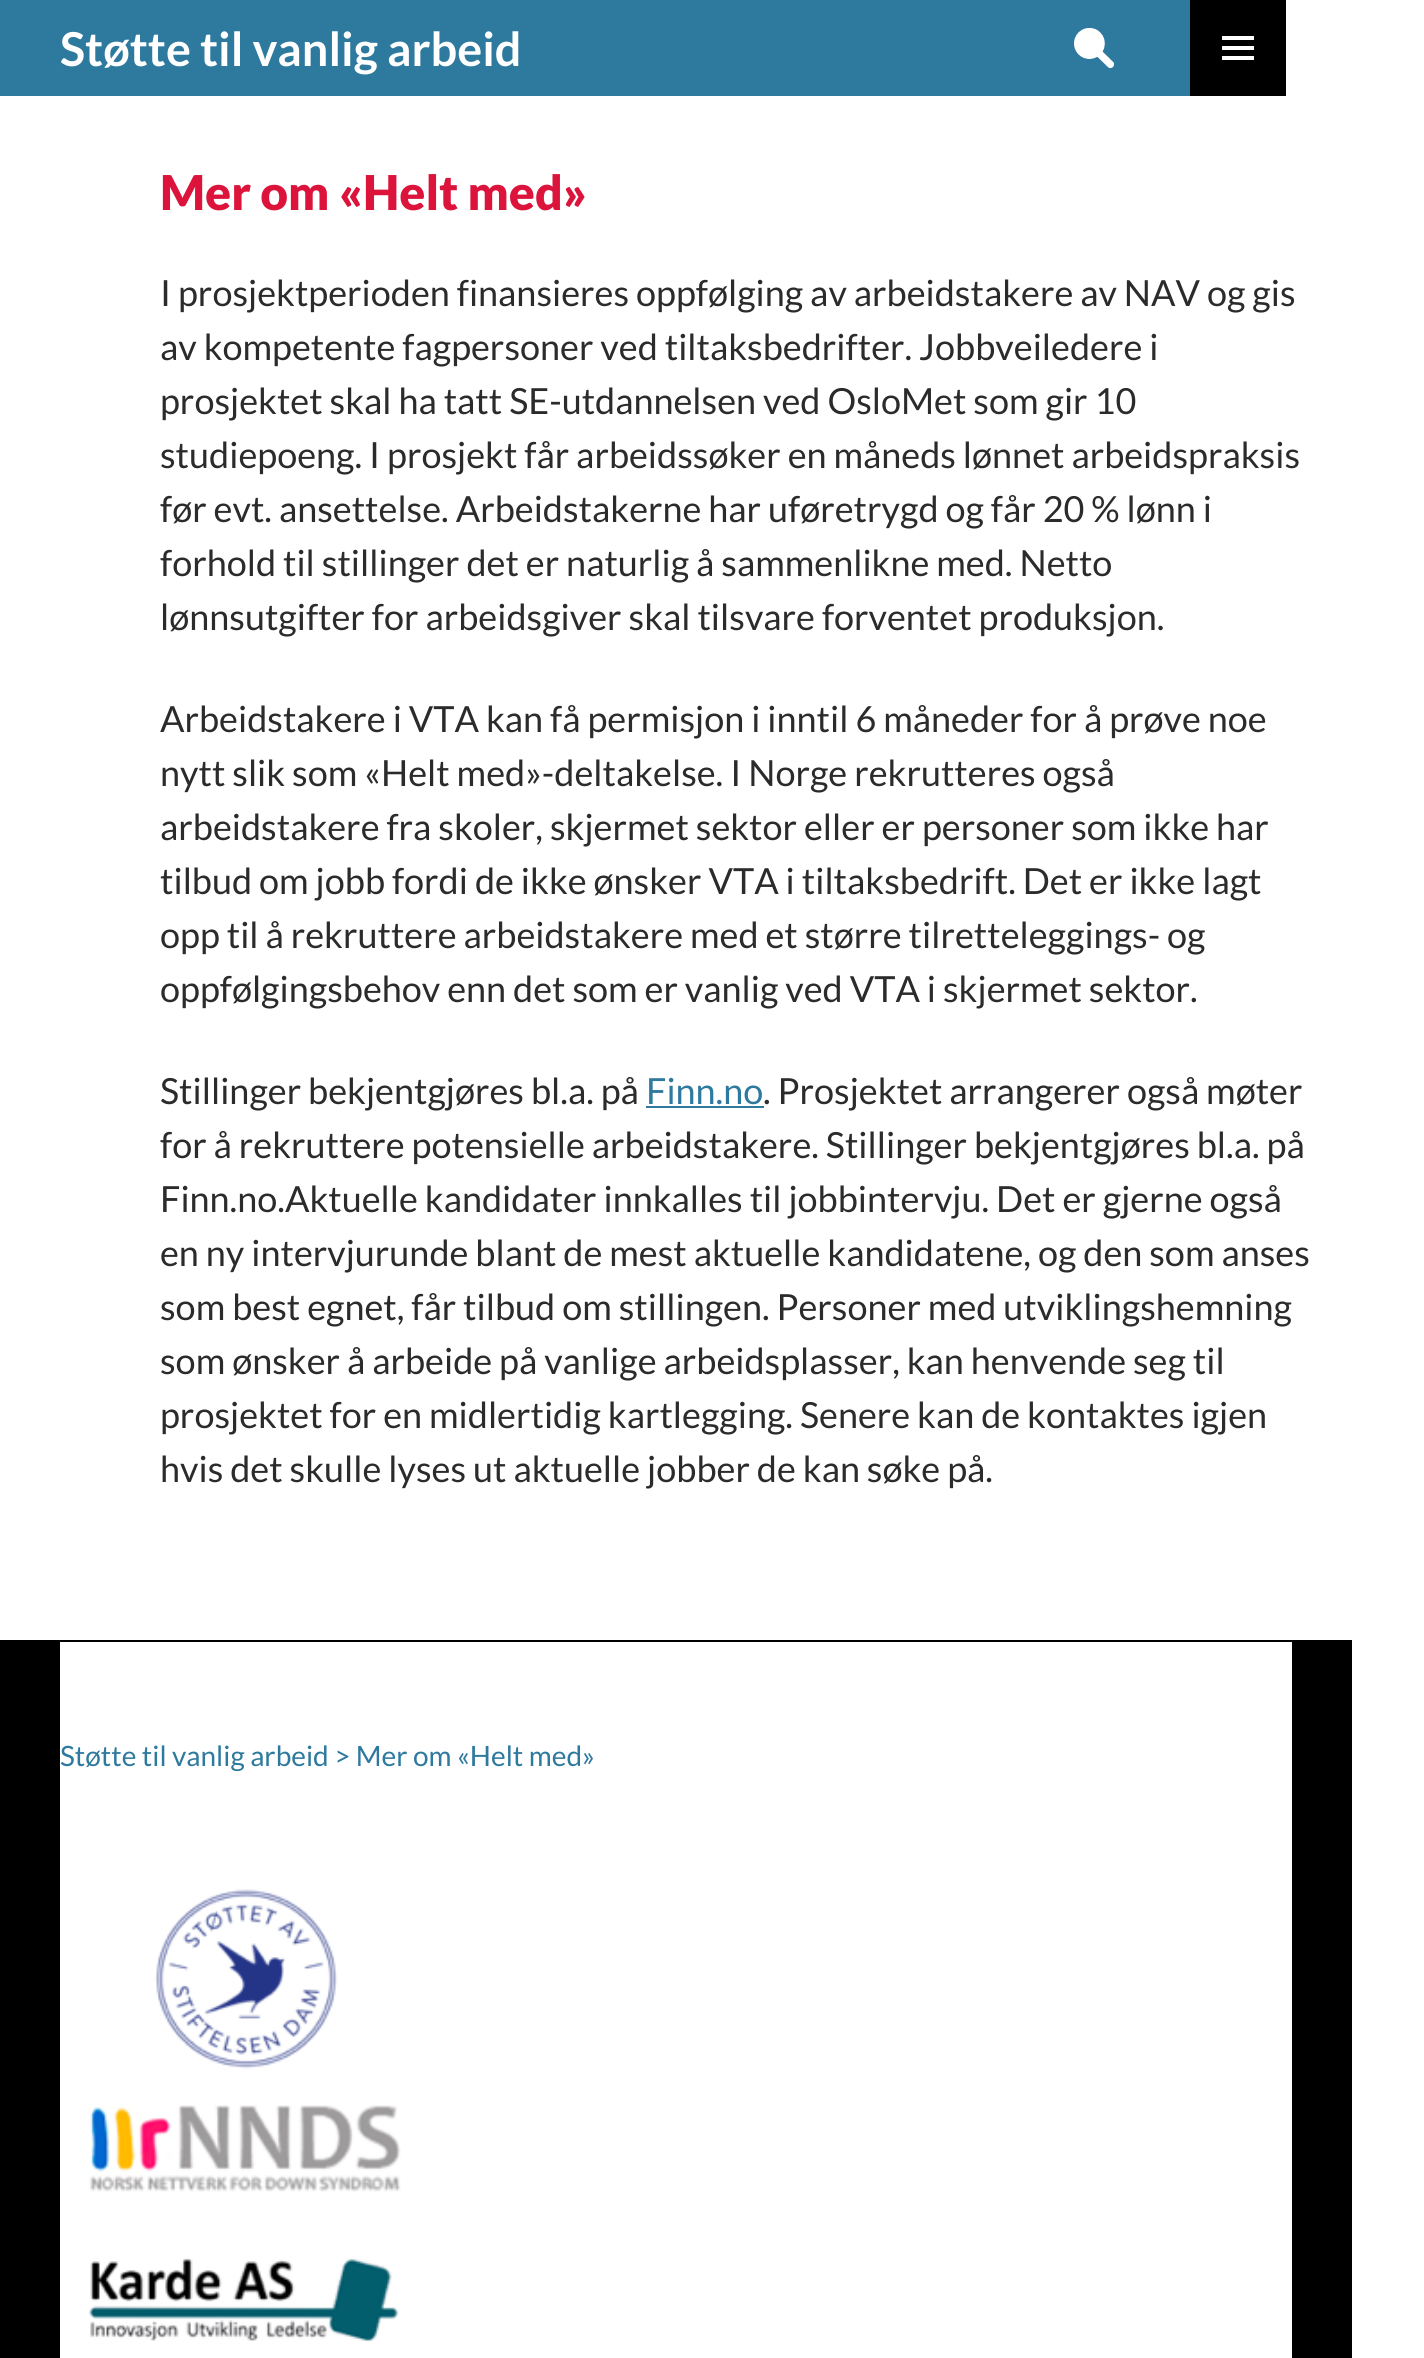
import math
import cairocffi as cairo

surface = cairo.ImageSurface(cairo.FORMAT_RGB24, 1424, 2358)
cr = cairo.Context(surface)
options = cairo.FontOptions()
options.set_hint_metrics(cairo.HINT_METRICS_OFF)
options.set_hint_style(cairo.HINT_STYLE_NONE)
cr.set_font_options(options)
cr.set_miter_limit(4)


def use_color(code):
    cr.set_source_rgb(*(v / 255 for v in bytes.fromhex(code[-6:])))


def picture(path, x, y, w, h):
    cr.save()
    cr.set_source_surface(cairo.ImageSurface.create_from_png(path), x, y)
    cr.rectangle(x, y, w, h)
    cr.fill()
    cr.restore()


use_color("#ffffff")
cr.paint()
use_color("#2e799e")
cr.rectangle(0, 0, 1190, 96)
cr.fill()
cr.select_font_face("Lato", cairo.FONT_SLANT_NORMAL, cairo.FONT_WEIGHT_BOLD)
cr.set_font_size(46.75)
use_color("#ffffff")
cr.move_to(60, 66)
cr.show_text("Støtte til vanlig arbeid")
picture("img1.png", 1074, 28, 40, 40)
use_color("#000000")
cr.rectangle(1190, 0, 96, 96)
cr.fill()
picture("img2.png", 1222, 36, 32, 24)
cr.select_font_face("Lato Black")
cr.set_font_size(48)
use_color("#dc143c")
cr.move_to(160, 210)
cr.show_text("Mer om «Helt med»")
cr.select_font_face("Lato")
cr.set_font_size(36)
use_color("#2b2b2b")
cr.move_to(160, 306)
cr.show_text("I prosjektperioden finansieres oppfølging av arbeidstakere av NAV og gis")
cr.move_to(160, 360)
cr.show_text("av kompetente fagpersoner ved tiltaksbedrifter. Jobbveiledere i")
cr.move_to(160, 414)
cr.show_text("prosjektet skal ha tatt SE-utdannelsen ved OsloMet som gir 10")
cr.move_to(160, 468)
cr.show_text("studiepoeng. I prosjekt får arbeidssøker en måneds lønnet arbeidspraksis")
cr.move_to(160, 522)
cr.show_text("før evt. ansettelse. Arbeidstakerne har uføretrygd og får 20 % lønn i")
cr.move_to(160, 576)
cr.show_text("forhold til stillinger det er naturlig å sammenlikne med. Netto")
cr.move_to(160, 630)
cr.show_text("lønnsutgifter for arbeidsgiver skal tilsvare forventet produksjon.")
cr.move_to(160, 732)
cr.show_text("Arbeidstakere i VTA kan få permisjon i inntil 6 måneder for å prøve noe")
cr.move_to(160, 786)
cr.show_text("nytt slik som «Helt med»-deltakelse. I Norge rekrutteres også")
cr.move_to(160, 840)
cr.show_text("arbeidstakere fra skoler, skjermet sektor eller er personer som ikke har")
cr.move_to(160, 894)
cr.show_text("tilbud om jobb fordi de ikke ønsker VTA i tiltaksbedrift. Det er ikke lagt")
cr.move_to(160, 948)
cr.show_text("opp til å rekruttere arbeidstakere med et større tilretteleggings- og")
cr.move_to(160, 1002)
cr.show_text("oppfølgingsbehov enn det som er vanlig ved VTA i skjermet sektor.")
cr.move_to(160, 1104)
cr.show_text("Stillinger bekjentgjøres bl.a. på")
use_color("#2e799e")
cr.move_to(646, 1104)
cr.show_text("Finn.no")
cr.rectangle(646, 1106, 118, 2)
cr.fill()
use_color("#2b2b2b")
cr.move_to(763, 1104)
cr.show_text(". Prosjektet arrangerer også møter")
cr.move_to(160, 1158)
cr.show_text("for å rekruttere potensielle arbeidstakere. Stillinger bekjentgjøres bl.a. på")
cr.move_to(160, 1212)
cr.show_text("Finn.no.Aktuelle kandidater innkalles til jobbintervju. Det er gjerne også")
cr.move_to(160, 1266)
cr.show_text("en ny intervjurunde blant de mest aktuelle kandidatene, og den som anses")
cr.move_to(160, 1320)
cr.show_text("som best egnet, får tilbud om stillingen. Personer med utviklingshemning")
cr.move_to(160, 1374)
cr.show_text("som ønsker å arbeide på vanlige arbeidsplasser, kan henvende seg til")
cr.move_to(160, 1428)
cr.show_text("prosjektet for en midlertidig kartlegging. Senere kan de kontaktes igjen")
cr.move_to(160, 1482)
cr.show_text("hvis det skulle lyses ut aktuelle jobber de kan søke på.")
use_color("#000000")
cr.rectangle(0, 1640, 1352, 718)
cr.fill()
use_color("#ffffff")
cr.rectangle(60, 1642, 1232, 716)
cr.fill()
cr.set_font_size(28)
use_color("#2e799e")
cr.move_to(60, 1766)
cr.show_text("Støtte til vanlig arbeid > Mer om «Helt med»")
picture("img3.png", 88, 1889, 313, 453)
surface.write_to_png("result.png")
